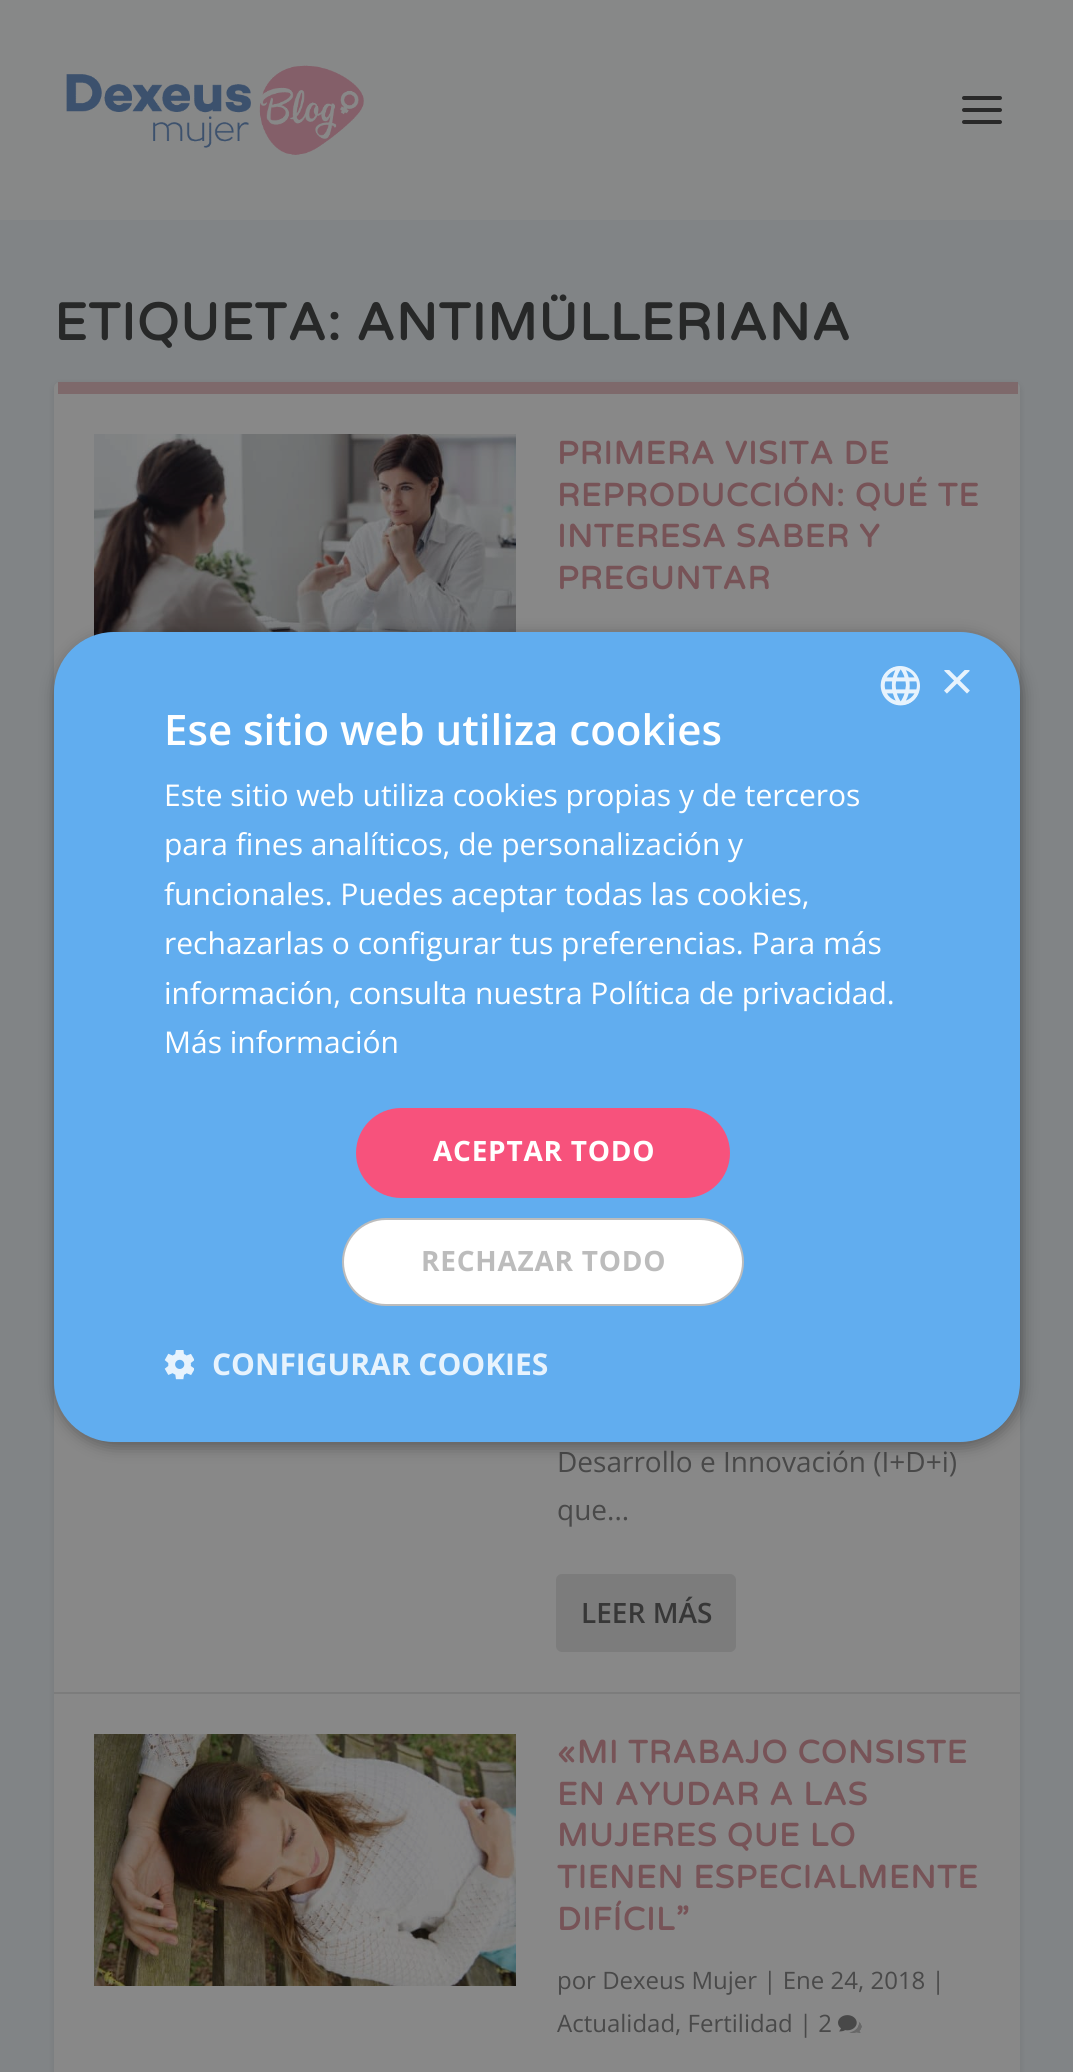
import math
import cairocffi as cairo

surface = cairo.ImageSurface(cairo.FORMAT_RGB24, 1073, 2072)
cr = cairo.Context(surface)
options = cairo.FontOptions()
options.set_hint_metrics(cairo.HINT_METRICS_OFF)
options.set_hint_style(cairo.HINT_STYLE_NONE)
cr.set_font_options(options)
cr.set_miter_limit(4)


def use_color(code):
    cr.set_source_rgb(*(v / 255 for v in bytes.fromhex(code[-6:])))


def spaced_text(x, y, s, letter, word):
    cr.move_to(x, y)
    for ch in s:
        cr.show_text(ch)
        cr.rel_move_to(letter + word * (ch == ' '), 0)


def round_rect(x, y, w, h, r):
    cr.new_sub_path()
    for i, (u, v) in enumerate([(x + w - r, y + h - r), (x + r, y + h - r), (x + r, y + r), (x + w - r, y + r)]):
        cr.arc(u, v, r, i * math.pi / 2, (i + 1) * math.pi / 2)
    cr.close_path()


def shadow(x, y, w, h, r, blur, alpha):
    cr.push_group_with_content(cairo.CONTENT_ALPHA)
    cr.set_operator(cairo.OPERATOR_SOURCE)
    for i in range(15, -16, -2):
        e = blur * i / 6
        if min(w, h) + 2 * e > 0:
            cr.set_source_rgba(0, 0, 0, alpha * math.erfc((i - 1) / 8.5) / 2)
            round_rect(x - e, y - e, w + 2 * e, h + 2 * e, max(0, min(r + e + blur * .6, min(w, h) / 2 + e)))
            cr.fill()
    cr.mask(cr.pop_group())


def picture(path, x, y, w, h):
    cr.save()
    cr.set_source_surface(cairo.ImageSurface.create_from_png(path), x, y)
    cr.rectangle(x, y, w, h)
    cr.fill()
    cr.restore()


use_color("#818486")
cr.paint()
use_color("#878888")
cr.rectangle(0, 0, 1073, 220)
cr.fill()
picture("img1.png", 66, 65, 298, 90)
use_color("#292929")
round_rect(962, 96, 40, 4, 2)
cr.fill()
round_rect(962, 108, 40, 4, 2)
cr.fill()
round_rect(962, 120, 40, 4, 2)
cr.fill()
cr.select_font_face("Varela Round", cairo.FONT_SLANT_NORMAL, cairo.FONT_WEIGHT_BOLD)
cr.set_font_size(52)
use_color("#272828")
spaced_text(54, 340, "ETIQUETA: ANTIMÜLLERIANA", 1, 0)
use_color("#090909")
shadow(54, 384, 966, 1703, 6, 3, 0.1)
use_color("#888888")
round_rect(54, 382, 966, 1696, 6)
cr.fill()
use_color("#7e696b")
cr.rectangle(58, 382, 960, 12)
cr.fill()
picture("img2.png", 94, 434, 422, 202)
cr.set_font_size(32)
use_color("#775357")
spaced_text(557, 464, "PRIMERA VISITA DE", 1, 0)
spaced_text(557, 506, "REPRODUCCIÓN: QUÉ TE", 1, 0)
spaced_text(557, 547, "INTERESA SABER Y", 1, 0)
spaced_text(557, 589, "PREGUNTAR", 1, 0)
use_color("#7c7c7c")
cr.rectangle(54, 1692, 966, 2)
cr.fill()
cr.select_font_face("Open Sans")
cr.set_font_size(28)
use_color("#494949")
cr.move_to(557, 1472)
cr.show_text("Desarrollo e Innovación (I+D+i)")
cr.move_to(557, 1520)
cr.show_text("que...")
use_color("#7c7c7c")
round_rect(556, 1574, 180, 78, 6)
cr.fill()
cr.select_font_face("Open Sans SemiBold")
use_color("#373737")
cr.move_to(581, 1623)
cr.show_text("LEER MÁS")
picture("img3.png", 94, 1734, 422, 252)
cr.select_font_face("Varela Round", cairo.FONT_SLANT_NORMAL, cairo.FONT_WEIGHT_BOLD)
cr.set_font_size(32)
use_color("#775357")
spaced_text(557, 1763, "«MI TRABAJO CONSISTE", 1, 0)
spaced_text(557, 1805, "EN AYUDAR A LAS", 1, 0)
spaced_text(557, 1846, "MUJERES QUE LO", 1, 0)
spaced_text(557, 1888, "TIENEN ESPECIALMENTE", 1, 0)
spaced_text(557, 1930, "DIFÍCIL”", 1, 0)
cr.select_font_face("Open Sans")
cr.set_font_size(24)
use_color("#494949")
cr.move_to(557, 1989)
cr.show_text("por Dexeus Mujer | Ene 24, 2018 |")
cr.move_to(557, 2032)
cr.show_text("Actualidad, Fertilidad | 2")
picture("img4.png", 838, 2015, 24, 18)
use_color("#000000")
shadow(56, 636, 966, 810, 60, 8, 0.35)
use_color("#61adef")
round_rect(54, 632, 966, 810, 60)
cr.fill()
picture("img5.png", 880, 666, 40, 40)
cr.save()
cr.rectangle(940, 670, 30, 30)
cr.clip()
cr.select_font_face("Liberation Sans")
cr.set_font_size(58)
use_color("#e7f3fd")
cr.move_to(940, 700)
cr.show_text("×")
cr.restore()
cr.select_font_face("Open Sans SemiBold")
cr.set_font_size(42)
use_color("#ffffff")
cr.move_to(164, 745)
cr.show_text("Ese sitio web utiliza cookies")
cr.select_font_face("Open Sans")
cr.set_font_size(30)
cr.move_to(164, 806)
cr.show_text("Este sitio web utiliza cookies propias y de terceros")
cr.move_to(164, 855)
cr.show_text("para fines analíticos, de personalización y")
cr.move_to(164, 905)
cr.show_text("funcionales. Puedes aceptar todas las cookies,")
cr.move_to(164, 954)
cr.show_text("rechazarlas o configurar tus preferencias. Para más")
cr.move_to(164, 1004)
cr.show_text("información, consulta nuestra Política de privacidad.")
cr.move_to(164, 1053)
cr.show_text("Más información")
use_color("#f7527c")
round_rect(356, 1108, 374, 90, 45)
cr.fill()
cr.select_font_face("Open Sans", cairo.FONT_SLANT_NORMAL, cairo.FONT_WEIGHT_BOLD)
cr.set_font_size(28)
use_color("#ffffff")
spaced_text(433, 1161, "ACEPTAR TODO", 0.75, 0)
round_rect(343, 1219, 400, 86, 43)
cr.fill_preserve()
use_color("#bcbcbc")
cr.stroke()
spaced_text(421, 1271, "RECHAZAR TODO", 0.75, 0)
picture("img6.png", 164, 1350, 30, 30)
cr.set_font_size(30)
use_color("#e7f3fd")
cr.move_to(212, 1375)
cr.show_text("CONFIGURAR COOKIES")
surface.write_to_png("result.png")
